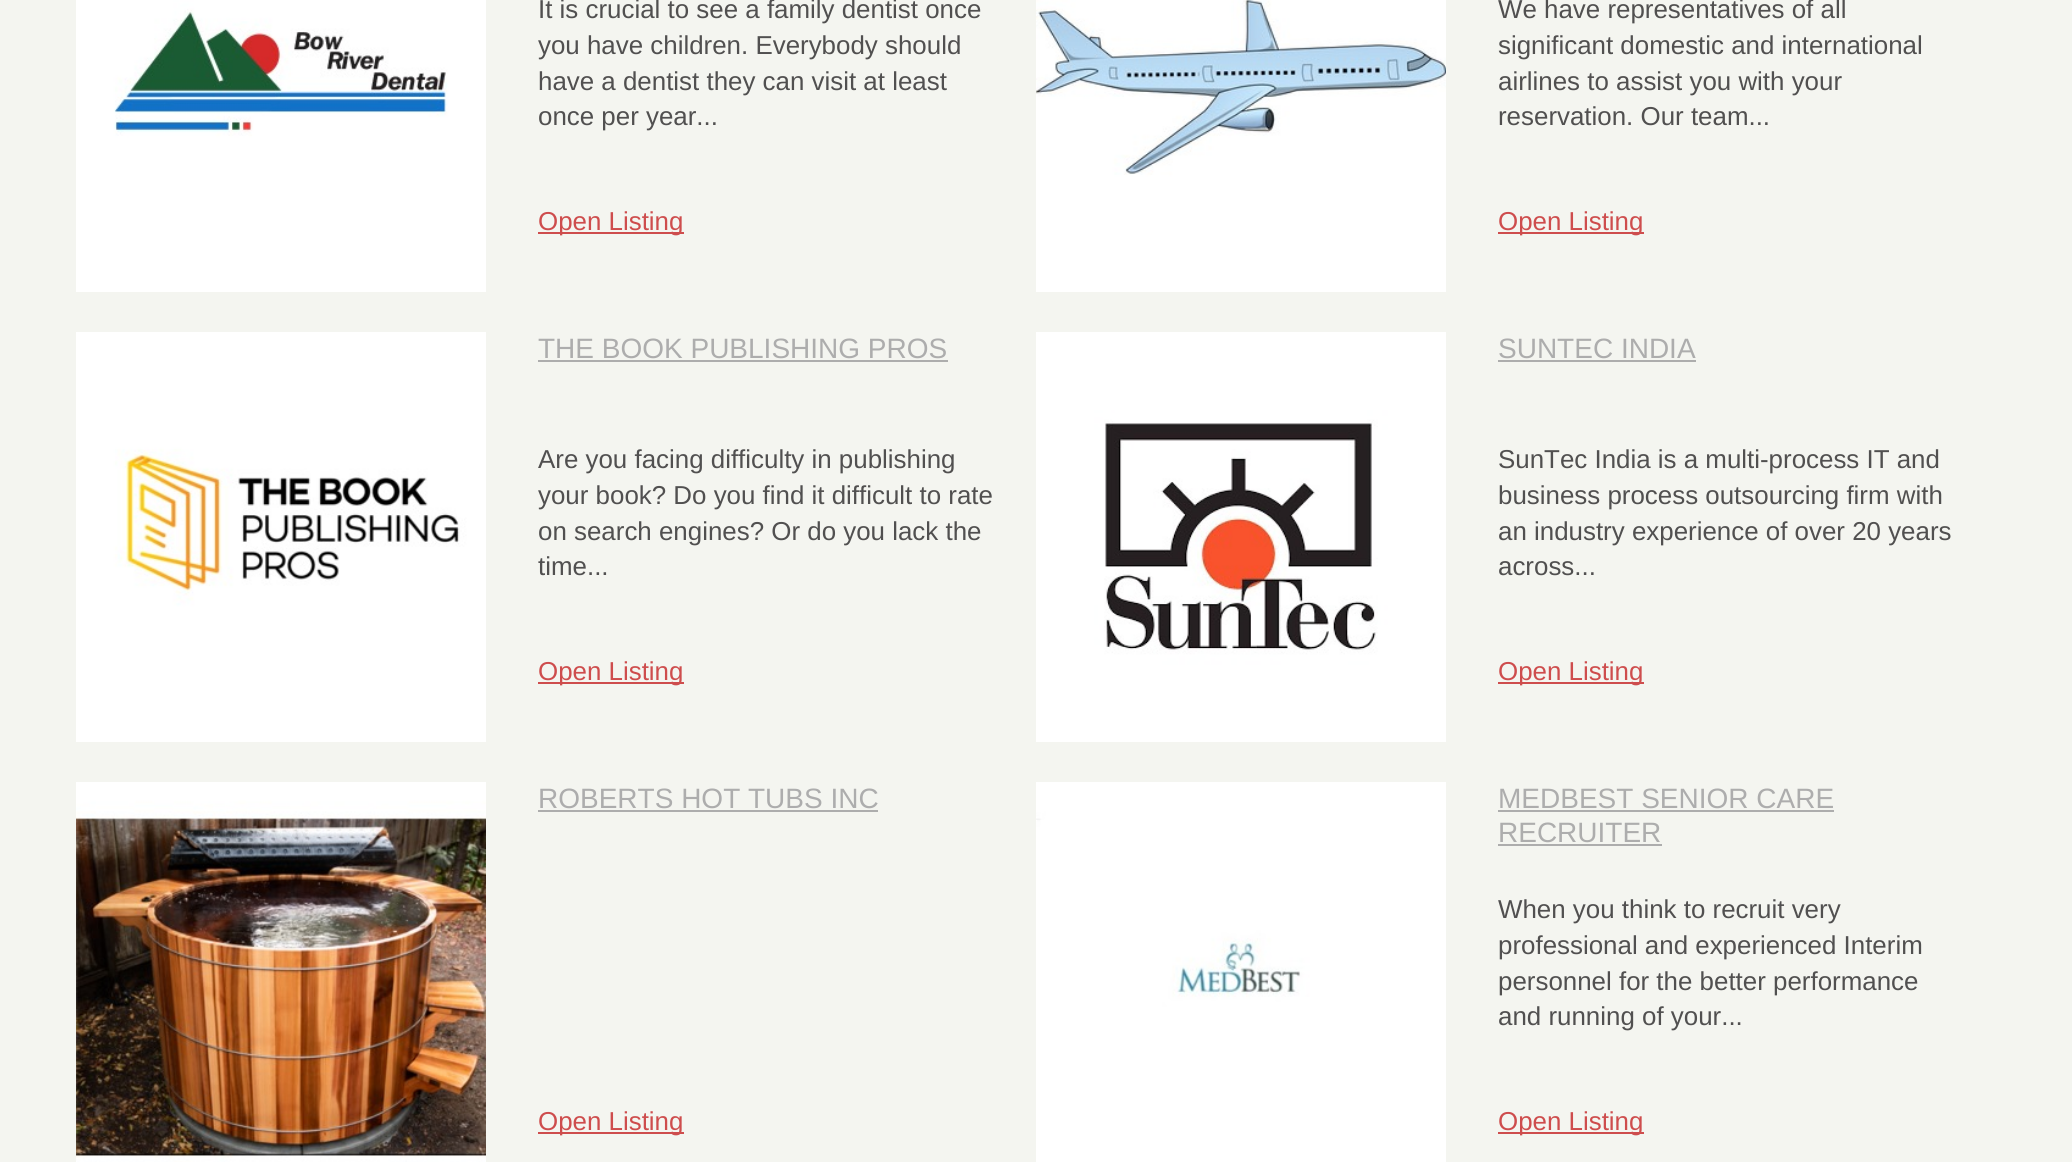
import math
import cairocffi as cairo

surface = cairo.ImageSurface(cairo.FORMAT_RGB24, 2072, 1162)
cr = cairo.Context(surface)
options = cairo.FontOptions()
options.set_hint_metrics(cairo.HINT_METRICS_OFF)
options.set_hint_style(cairo.HINT_STYLE_NONE)
cr.set_font_options(options)
cr.set_miter_limit(4)


def use_color(code):
    cr.set_source_rgb(*(v / 255 for v in bytes.fromhex(code[-6:])))


def picture(path, x, y, w, h):
    cr.save()
    cr.set_source_surface(cairo.ImageSurface.create_from_png(path), x, y)
    cr.rectangle(x, y, w, h)
    cr.fill()
    cr.restore()


use_color("#f4f5f0")
cr.paint()
picture("img1.png", 76, 0, 410, 292)
cr.select_font_face("Liberation Sans")
cr.set_font_size(25.9)
use_color("#515050")
cr.move_to(538, 18)
cr.show_text("It is crucial to see a family dentist once")
cr.move_to(538, 54)
cr.show_text("you have children. Everybody should")
cr.move_to(538, 90)
cr.show_text("have a dentist they can visit at least")
cr.move_to(538, 125)
cr.show_text("once per year...")
use_color("#ce4d4d")
cr.rectangle(538, 232, 146, 2)
cr.fill()
cr.move_to(538, 230)
cr.show_text("Open Listing")
picture("img2.png", 1036, 0, 410, 292)
use_color("#515050")
cr.move_to(1498, 18)
cr.show_text("We have representatives of all")
cr.move_to(1498, 54)
cr.show_text("significant domestic and international")
cr.move_to(1498, 90)
cr.show_text("airlines to assist you with your")
cr.move_to(1498, 125)
cr.show_text("reservation. Our team...")
use_color("#ce4d4d")
cr.rectangle(1498, 232, 146, 2)
cr.fill()
cr.move_to(1498, 230)
cr.show_text("Open Listing")
picture("img3.png", 76, 332, 410, 410)
cr.set_font_size(28)
use_color("#adadad")
cr.move_to(538, 358)
cr.show_text("THE BOOK PUBLISHING PROS")
cr.rectangle(538, 360, 410, 2)
cr.fill()
cr.set_font_size(25.9)
use_color("#515050")
cr.move_to(538, 468)
cr.show_text("Are you facing difficulty in publishing")
cr.move_to(538, 504)
cr.show_text("your book? Do you find it difficult to rate")
cr.move_to(538, 540)
cr.show_text("on search engines? Or do you lack the")
cr.move_to(538, 575)
cr.show_text("time...")
use_color("#ce4d4d")
cr.rectangle(538, 682, 146, 2)
cr.fill()
cr.move_to(538, 680)
cr.show_text("Open Listing")
picture("img4.png", 1036, 332, 410, 410)
cr.set_font_size(28)
use_color("#adadad")
cr.move_to(1498, 358)
cr.show_text("SUNTEC INDIA")
cr.rectangle(1498, 360, 198, 2)
cr.fill()
cr.set_font_size(25.9)
use_color("#515050")
cr.move_to(1498, 468)
cr.show_text("SunTec India is a multi-process IT and")
cr.move_to(1498, 504)
cr.show_text("business process outsourcing firm with")
cr.move_to(1498, 540)
cr.show_text("an industry experience of over 20 years")
cr.move_to(1498, 575)
cr.show_text("across...")
use_color("#ce4d4d")
cr.rectangle(1498, 682, 146, 2)
cr.fill()
cr.move_to(1498, 680)
cr.show_text("Open Listing")
picture("img5.png", 76, 782, 410, 380)
cr.set_font_size(28)
use_color("#adadad")
cr.move_to(538, 808)
cr.show_text("ROBERTS HOT TUBS INC")
cr.rectangle(538, 810, 340, 2)
cr.fill()
use_color("#ce4d4d")
cr.rectangle(538, 1132, 146, 2)
cr.fill()
cr.set_font_size(25.9)
cr.move_to(538, 1130)
cr.show_text("Open Listing")
picture("img6.png", 1036, 782, 410, 380)
cr.set_font_size(28)
use_color("#adadad")
cr.move_to(1498, 808)
cr.show_text("MEDBEST SENIOR CARE")
cr.rectangle(1498, 810, 336, 2)
cr.fill()
cr.move_to(1498, 842)
cr.show_text("RECRUITER")
cr.rectangle(1498, 844, 164, 2)
cr.fill()
cr.set_font_size(25.9)
use_color("#515050")
cr.move_to(1498, 918)
cr.show_text("When you think to recruit very")
cr.move_to(1498, 954)
cr.show_text("professional and experienced Interim")
cr.move_to(1498, 990)
cr.show_text("personnel for the better performance")
cr.move_to(1498, 1025)
cr.show_text("and running of your...")
use_color("#ce4d4d")
cr.rectangle(1498, 1132, 146, 2)
cr.fill()
cr.move_to(1498, 1130)
cr.show_text("Open Listing")
surface.write_to_png("result.png")
